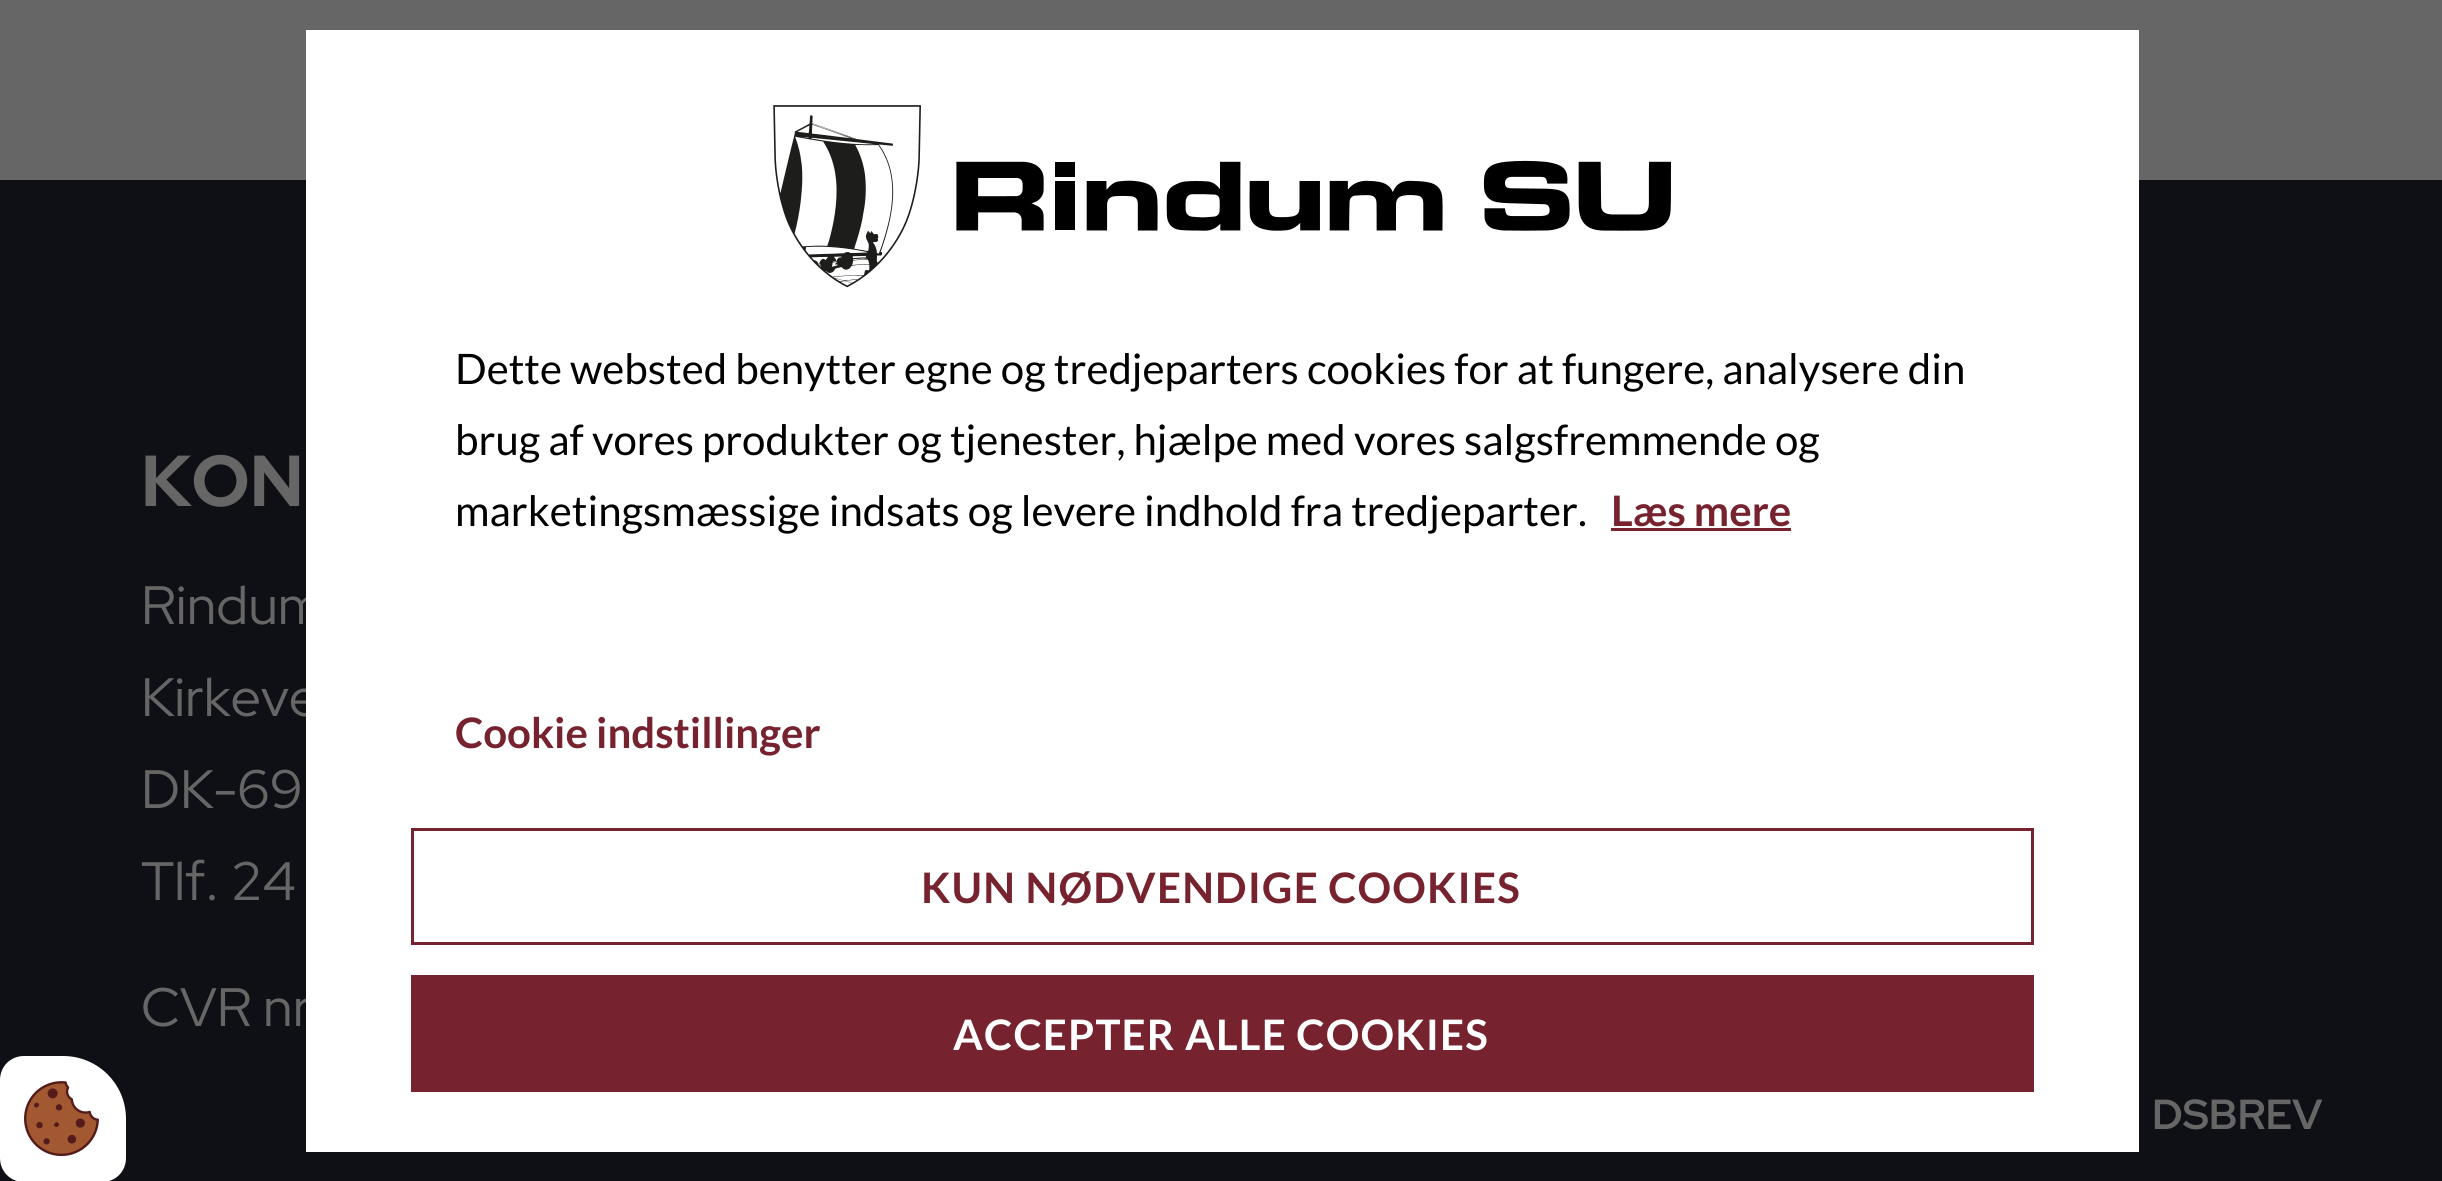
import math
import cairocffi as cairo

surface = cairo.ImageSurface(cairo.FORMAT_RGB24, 2442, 1181)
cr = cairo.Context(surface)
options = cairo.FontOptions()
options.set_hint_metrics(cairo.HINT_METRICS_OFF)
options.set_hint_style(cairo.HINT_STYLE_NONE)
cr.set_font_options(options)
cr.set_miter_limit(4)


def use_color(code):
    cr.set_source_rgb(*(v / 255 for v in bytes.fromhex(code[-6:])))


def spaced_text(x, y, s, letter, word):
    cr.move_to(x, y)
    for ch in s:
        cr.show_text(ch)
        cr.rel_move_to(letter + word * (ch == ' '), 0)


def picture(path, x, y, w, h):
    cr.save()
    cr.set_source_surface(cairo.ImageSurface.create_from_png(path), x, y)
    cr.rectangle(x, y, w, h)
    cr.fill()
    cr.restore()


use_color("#666666")
cr.paint()
use_color("#0f1016")
cr.rectangle(0, 180, 2442, 1001)
cr.fill()
cr.select_font_face("Red Hat Display")
cr.set_font_size(54)
use_color("#666666")
cr.move_to(141, 624)
cr.show_text("Rindum")
cr.move_to(141, 716)
cr.show_text("Kirkeve")
cr.move_to(141, 1026)
cr.show_text("CVR nr")
use_color("#ffffff")
cr.rectangle(306, 30, 1833, 1122)
cr.fill()
picture("img1.png", 773, 105, 898, 183)
cr.select_font_face("Lato")
cr.set_font_size(42)
use_color("#000000")
cr.move_to(455, 384)
cr.show_text("Dette websted benytter egne og tredjeparters cookies for at fungere, analysere din")
cr.move_to(455, 455)
cr.show_text("brug af vores produkter og tjenester, hjælpe med vores salgsfremmende og")
cr.move_to(455, 526)
cr.show_text("marketingsmæssige indsats og levere indhold fra tredjeparter.")
cr.select_font_face("Lato", cairo.FONT_SLANT_NORMAL, cairo.FONT_WEIGHT_BOLD)
use_color("#76232f")
cr.move_to(1611, 526)
cr.show_text("Læs mere")
cr.rectangle(1611, 528, 180, 3)
cr.fill()
cr.move_to(455, 748)
cr.show_text("Cookie indstillinger")
cr.rectangle(412.5, 829.5, 1620, 114)
cr.set_line_width(3)
cr.stroke()
spaced_text(921, 903, "KUN NØDVENDIGE COOKIES", 1.2, 0)
cr.rectangle(411, 975, 1623, 117)
cr.fill()
use_color("#ffffff")
spaced_text(953, 1050, "ACCEPTER ALLE COOKIES", 1.2, 0)
cr.new_path()
cr.move_to(24, 1056)
cr.line_to(63, 1056)
cr.curve_to(98, 1056, 126, 1084, 126, 1119)
cr.line_to(126, 1158)
cr.curve_to(126, 1171.5, 115.5, 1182, 102, 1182)
cr.line_to(24, 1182)
cr.curve_to(10.5, 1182, 0, 1171.5, 0, 1158)
cr.line_to(0, 1080)
cr.curve_to(0, 1066.5, 10.5, 1056, 24, 1056)
cr.close_path()
cr.fill()
picture("img2.png", 24, 1081, 75, 76)
cr.select_font_face("Red Hat Display ExtraBold")
cr.set_font_size(72)
use_color("#666666")
cr.move_to(141, 506)
cr.show_text("KON")
cr.select_font_face("Red Hat Display")
cr.set_font_size(54)
cr.move_to(141, 808)
cr.show_text("DK-69")
cr.move_to(141, 900)
cr.show_text("Tlf. 24")
cr.select_font_face("Red Hat Display", cairo.FONT_SLANT_NORMAL, cairo.FONT_WEIGHT_BOLD)
cr.set_font_size(42)
cr.move_to(2152, 1129)
cr.show_text("DSBREV")
surface.write_to_png("result.png")
